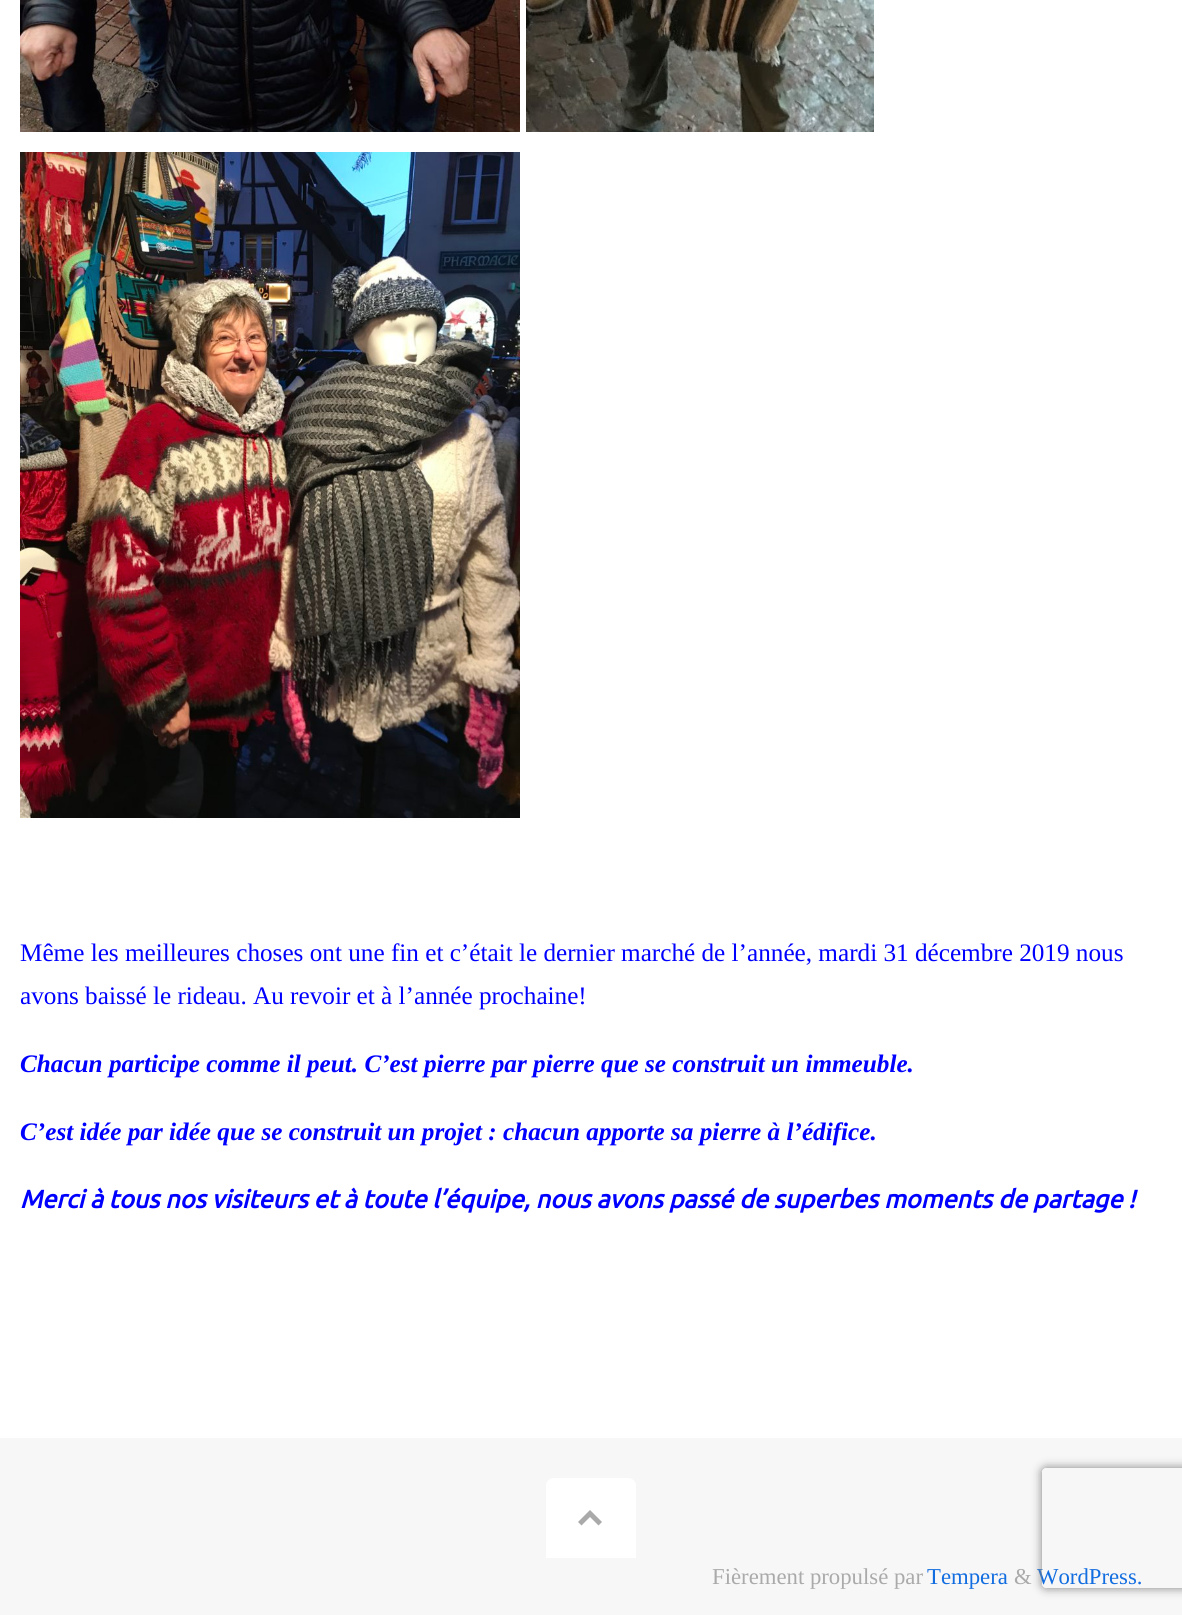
import math
import cairocffi as cairo

surface = cairo.ImageSurface(cairo.FORMAT_RGB24, 1182, 1615)
cr = cairo.Context(surface)
options = cairo.FontOptions()
options.set_hint_metrics(cairo.HINT_METRICS_OFF)
options.set_hint_style(cairo.HINT_STYLE_NONE)
cr.set_font_options(options)
cr.set_miter_limit(4)


def use_color(code):
    cr.set_source_rgb(*(v / 255 for v in bytes.fromhex(code[-6:])))


def round_rect(x, y, w, h, r):
    cr.new_sub_path()
    for i, (u, v) in enumerate([(x + w - r, y + h - r), (x + r, y + h - r), (x + r, y + r), (x + w - r, y + r)]):
        cr.arc(u, v, r, i * math.pi / 2, (i + 1) * math.pi / 2)
    cr.close_path()


def shadow(x, y, w, h, r, blur, alpha):
    cr.push_group_with_content(cairo.CONTENT_ALPHA)
    cr.set_operator(cairo.OPERATOR_SOURCE)
    for i in range(15, -16, -2):
        e = blur * i / 6
        if min(w, h) + 2 * e > 0:
            cr.set_source_rgba(0, 0, 0, alpha * math.erfc((i - 1) / 8.5) / 2)
            round_rect(x - e, y - e, w + 2 * e, h + 2 * e, max(0, min(r + e + blur * .6, min(w, h) / 2 + e)))
            cr.fill()
    cr.mask(cr.pop_group())


def picture(path, x, y, w, h):
    cr.save()
    cr.set_source_surface(cairo.ImageSurface.create_from_png(path), x, y)
    cr.rectangle(x, y, w, h)
    cr.fill()
    cr.restore()


use_color("#ffffff")
cr.paint()
picture("img1.png", 20, 0, 500, 132)
picture("img2.png", 526, 0, 348, 132)
picture("img3.png", 20, 152, 500, 666)
cr.select_font_face("Liberation Serif")
cr.set_font_size(25.2)
use_color("#0000ff")
cr.move_to(20, 961)
cr.show_text("Même les meilleures choses ont une fin et c’était le dernier marché de l’année, mardi 31 décembre 2019 nous")
cr.move_to(20, 1004)
cr.show_text("avons baissé le rideau. Au revoir et à l’année prochaine!")
cr.select_font_face("Liberation Serif", cairo.FONT_SLANT_ITALIC, cairo.FONT_WEIGHT_BOLD)
cr.move_to(20, 1072)
cr.show_text("Chacun participe comme il peut. C’est pierre par pierre que se construit un immeuble.")
cr.move_to(20, 1140)
cr.show_text("C’est idée par idée que se construit un projet : chacun apporte sa pierre à l’édifice.")
cr.select_font_face("Ubuntu", cairo.FONT_SLANT_ITALIC, cairo.FONT_WEIGHT_BOLD)
cr.move_to(20, 1208)
cr.show_text("Merci à tous nos visiteurs et à toute l’équipe, nous avons passé de superbes moments de partage !")
use_color("#f7f7f7")
cr.rectangle(0, 1438, 1182, 177)
cr.fill()
use_color("#ffffff")
cr.new_path()
cr.move_to(554, 1478)
cr.line_to(628, 1478)
cr.curve_to(632.5, 1478, 636, 1481.5, 636, 1486)
cr.line_to(636, 1558)
cr.line_to(546, 1558)
cr.line_to(546, 1486)
cr.curve_to(546, 1481.5, 549.5, 1478, 554, 1478)
cr.close_path()
cr.fill()
use_color("#aaaaaa")
cr.new_path()
cr.move_to(578, 1522)
cr.line_to(590, 1510)
cr.line_to(602, 1522)
cr.line_to(598.5, 1525.5)
cr.line_to(590, 1517)
cr.line_to(581.5, 1525.5)
cr.close_path()
cr.fill()
cr.select_font_face("Liberation Serif")
cr.set_font_size(22.75)
cr.move_to(712, 1584)
cr.show_text("Fièrement propulsé par")
use_color("#116de0")
cr.move_to(927, 1584)
cr.show_text("Tempera")
use_color("#aaaaaa")
cr.move_to(1014, 1584)
cr.show_text("&")
use_color("#116de0")
cr.move_to(1037, 1584)
cr.show_text("WordPress.")
cr.save()
cr.set_fill_rule(cairo.FILL_RULE_EVEN_ODD)
cr.new_path()
cr.move_to(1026, 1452)
cr.line_to(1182, 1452)
cr.line_to(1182, 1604)
cr.line_to(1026, 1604)
cr.close_path()
cr.move_to(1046, 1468)
cr.line_to(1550, 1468)
cr.curve_to(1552, 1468, 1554, 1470, 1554, 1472)
cr.line_to(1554, 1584)
cr.curve_to(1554, 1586, 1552, 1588, 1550, 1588)
cr.line_to(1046, 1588)
cr.curve_to(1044, 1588, 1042, 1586, 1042, 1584)
cr.line_to(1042, 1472)
cr.curve_to(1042, 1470, 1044, 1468, 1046, 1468)
cr.close_path()
cr.clip()
use_color("#808080")
shadow(1042, 1468, 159, 120, 4, 5, 1)
cr.restore()
surface.write_to_png("result.png")
